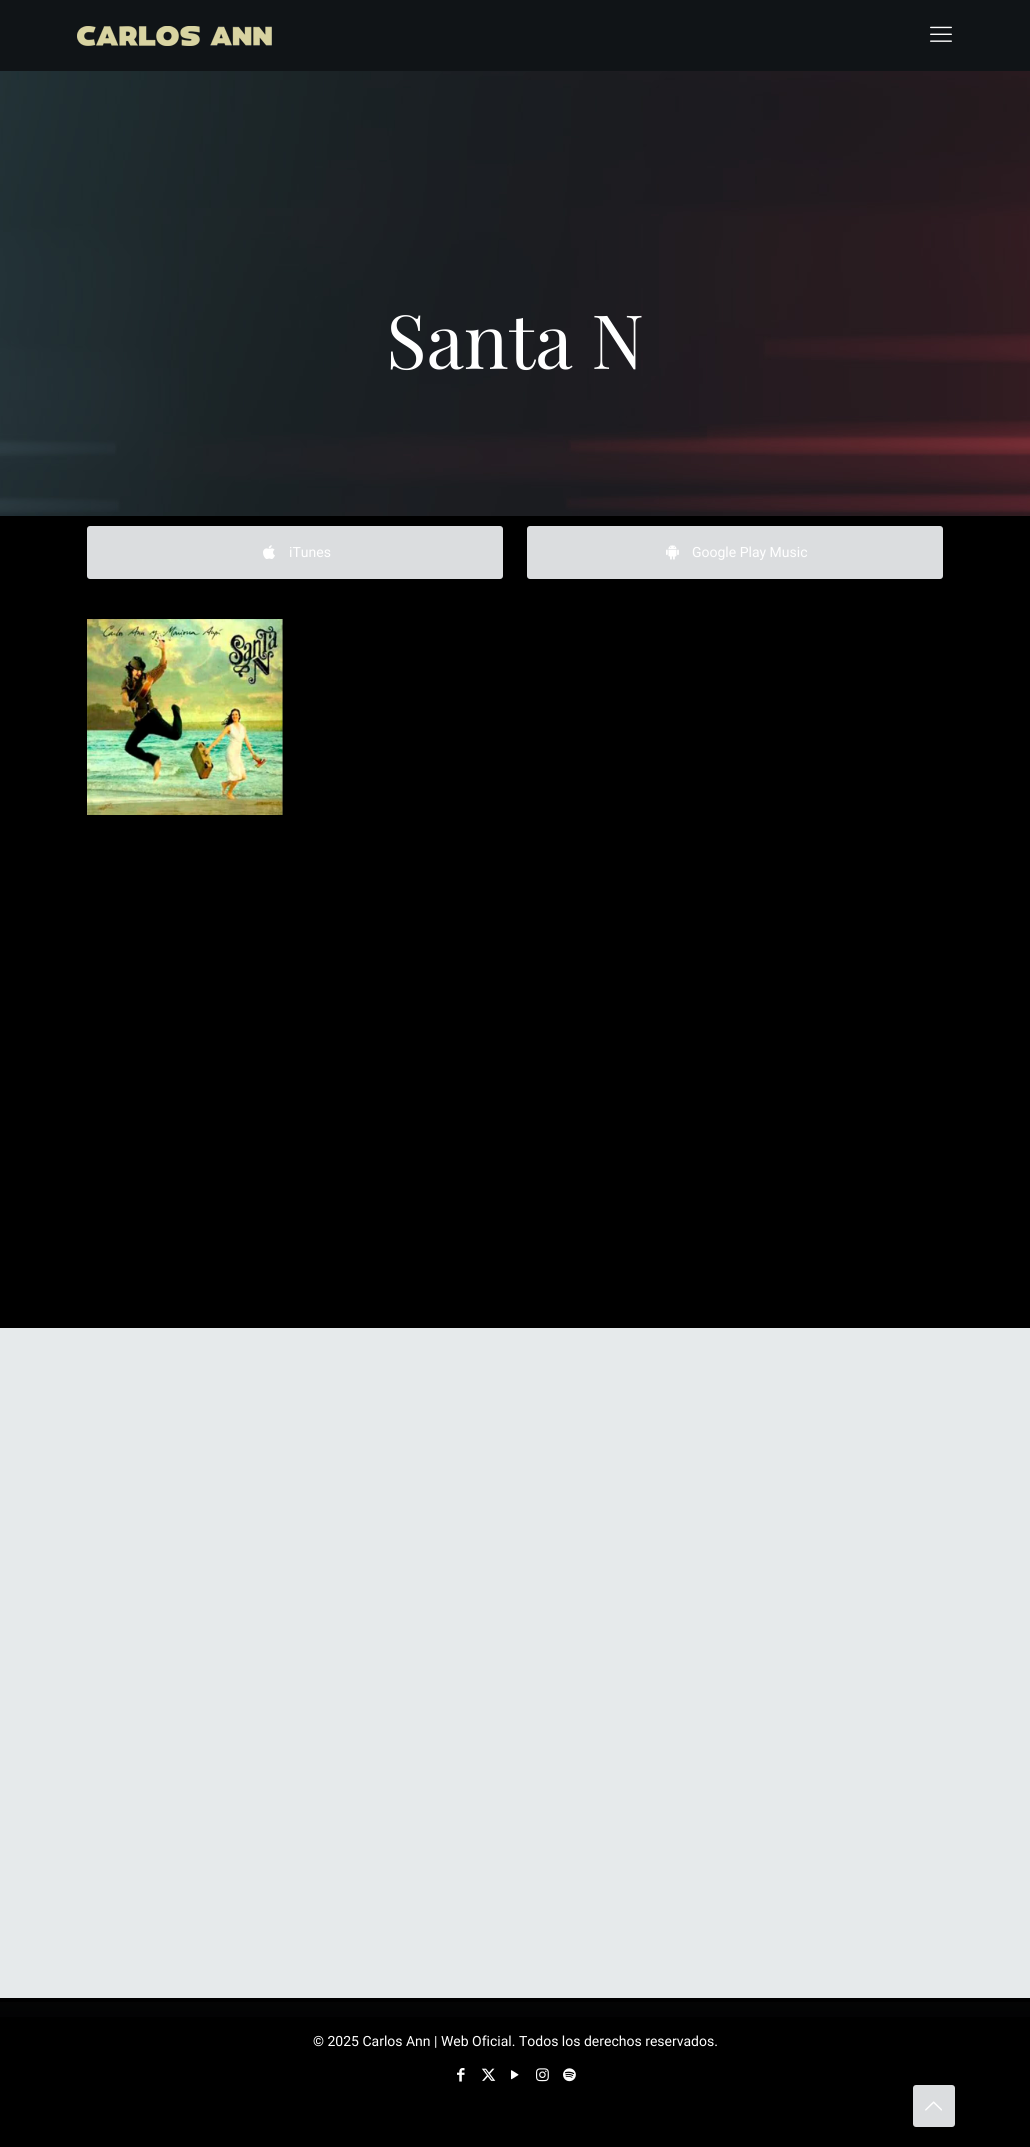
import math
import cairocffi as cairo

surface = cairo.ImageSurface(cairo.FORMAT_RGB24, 1030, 2147)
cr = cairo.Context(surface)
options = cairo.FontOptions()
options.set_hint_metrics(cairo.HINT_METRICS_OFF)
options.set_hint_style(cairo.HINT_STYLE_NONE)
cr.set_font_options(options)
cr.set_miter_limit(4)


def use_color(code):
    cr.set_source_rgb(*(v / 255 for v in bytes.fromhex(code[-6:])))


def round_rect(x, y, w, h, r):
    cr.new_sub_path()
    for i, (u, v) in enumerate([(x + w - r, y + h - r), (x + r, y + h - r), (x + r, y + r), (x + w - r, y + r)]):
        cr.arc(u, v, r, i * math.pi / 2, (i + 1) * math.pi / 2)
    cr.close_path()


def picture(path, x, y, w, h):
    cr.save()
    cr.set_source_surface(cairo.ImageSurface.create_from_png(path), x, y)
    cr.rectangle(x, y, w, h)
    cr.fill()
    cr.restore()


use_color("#e6eaeb")
cr.paint()
use_color("#000000")
cr.rectangle(0, 516, 1030, 812)
cr.fill()
picture("img1.png", 0, 71, 1030, 445)
use_color("#101417")
cr.rectangle(0, 0, 1030, 71)
cr.fill()
picture("img2.png", 77, 26, 195, 20)
picture("img3.png", 930, 26, 22, 16)
cr.select_font_face("Playfair Display")
cr.set_font_size(75)
use_color("#ffffff")
cr.move_to(386, 369)
cr.show_text("Santa N")
use_color("#dbdddf")
round_rect(87, 526, 416, 53, 3)
cr.fill()
picture("img4.png", 263, 545, 12, 14)
cr.select_font_face("Roboto")
cr.set_font_size(14)
use_color("#ffffff")
cr.move_to(289, 557)
cr.show_text("iTunes")
use_color("#dbdddf")
round_rect(527, 526, 416, 53, 3)
cr.fill()
picture("img5.png", 666, 545, 13, 15)
use_color("#ffffff")
cr.move_to(692, 557)
cr.show_text("Google Play Music")
picture("img6.png", 87, 619, 196, 196)
use_color("#000000")
cr.rectangle(0, 1998, 1030, 149)
cr.fill()
picture("img7.png", 0, 2002, 1030, 15)
use_color("#ffffff")
cr.move_to(313, 2046)
cr.show_text("© 2025 Carlos Ann | Web Oficial. Todos los derechos reservados.")
picture("img8.png", 457, 2068, 8, 14)
picture("img9.png", 481, 2068, 15, 13)
picture("img10.png", 511, 2070, 8, 10)
picture("img11.png", 536, 2068, 13, 14)
picture("img12.png", 563, 2068, 13, 14)
use_color("#dbdddf")
round_rect(913, 2085, 42, 42, 3)
cr.fill()
picture("img13.png", 925, 2101, 17, 10)
surface.write_to_png("result.png")
